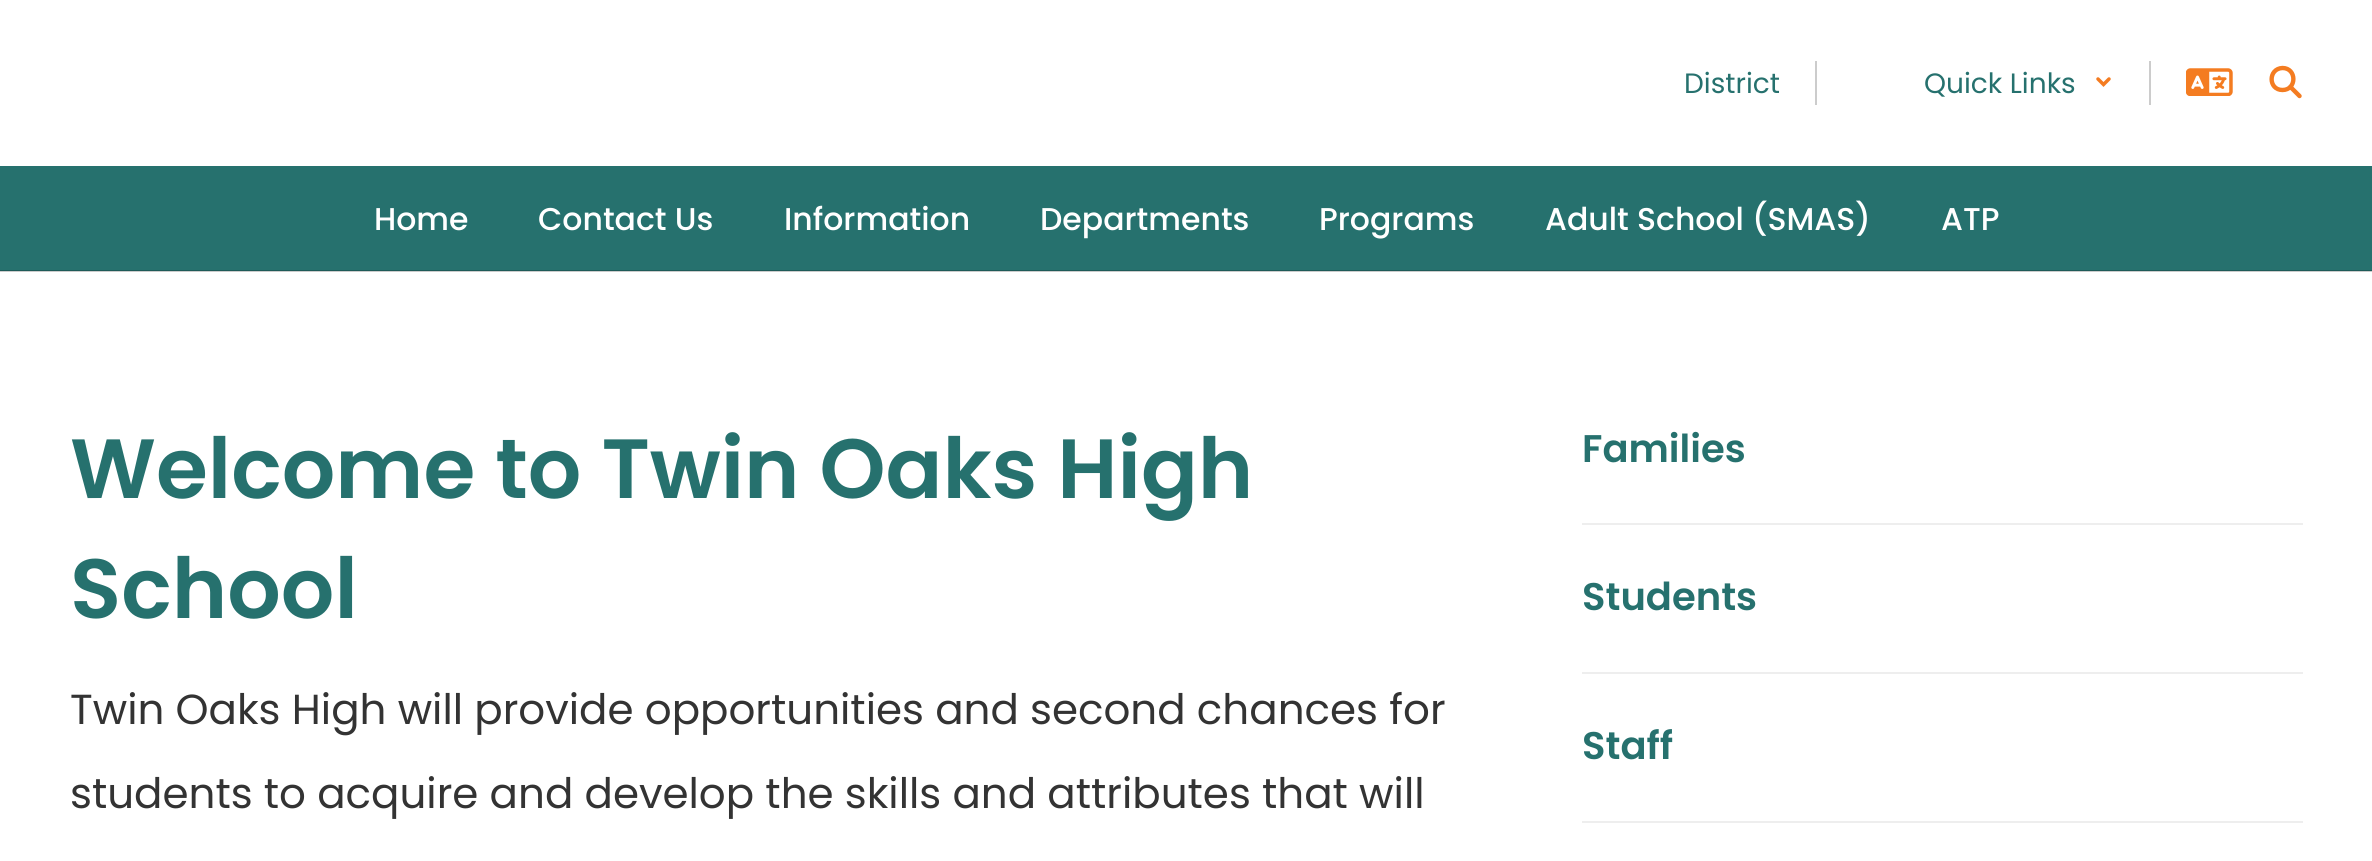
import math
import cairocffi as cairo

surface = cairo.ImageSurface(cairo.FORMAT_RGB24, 2372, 861)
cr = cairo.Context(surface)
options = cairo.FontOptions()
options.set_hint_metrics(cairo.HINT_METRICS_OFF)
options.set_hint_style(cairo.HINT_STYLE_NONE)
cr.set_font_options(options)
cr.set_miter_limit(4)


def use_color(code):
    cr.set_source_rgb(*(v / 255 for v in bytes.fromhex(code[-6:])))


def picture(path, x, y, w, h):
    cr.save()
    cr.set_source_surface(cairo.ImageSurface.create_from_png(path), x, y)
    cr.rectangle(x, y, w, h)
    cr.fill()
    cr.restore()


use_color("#ffffff")
cr.paint()
use_color("#cccccc")
cr.rectangle(0, 271, 2372, 1)
cr.fill()
cr.rectangle(1815, 61, 2, 44)
cr.fill()
cr.select_font_face("Poppins")
cr.set_font_size(28)
use_color("#26716e")
cr.move_to(1684, 93)
cr.show_text("District")
use_color("#cccccc")
cr.rectangle(2149, 61, 2, 44)
cr.fill()
use_color("#26716e")
cr.move_to(1924, 93)
cr.show_text("Quick Links")
cr.new_path()
cr.move_to(2098, 79)
cr.line_to(2103.5, 84.5)
cr.line_to(2109, 79)
use_color("#f47c21")
cr.set_line_width(3.5)
cr.set_line_cap(cairo.LINE_CAP_ROUND)
cr.stroke()
picture("img1.png", 2186, 68, 47, 28)
cr.new_path()
cr.move_to(2282.5, 90)
cr.curve_to(2297, 90, 2297, 68, 2282.5, 68)
cr.curve_to(2268, 68.5, 2268, 90, 2282.5, 90)
cr.close_path()
cr.set_line_width(4.4)
cr.set_line_cap(cairo.LINE_CAP_SQUARE)
cr.set_line_join(cairo.LINE_JOIN_ROUND)
cr.stroke()
cr.new_path()
cr.move_to(2299.5, 96)
cr.line_to(2290.5, 87)
cr.set_line_cap(cairo.LINE_CAP_ROUND)
cr.stroke()
use_color("#26716e")
cr.rectangle(0, 166, 2372, 104)
cr.fill()
use_color("#1e5a58")
cr.rectangle(0, 270, 2372, 1)
cr.fill()
cr.select_font_face("Poppins Medium")
cr.set_font_size(31.5)
use_color("#ffffff")
cr.move_to(374, 230)
cr.show_text("Home")
cr.move_to(538, 230)
cr.show_text("Contact Us")
cr.move_to(784, 230)
cr.show_text("Information")
cr.move_to(1040, 230)
cr.show_text("Departments")
cr.move_to(1319, 230)
cr.show_text("Programs")
cr.move_to(1545, 230)
cr.show_text("Adult School (SMAS)")
cr.move_to(1941, 230)
cr.show_text("ATP")
cr.select_font_face("Poppins SemiBold")
cr.set_font_size(84)
use_color("#26716e")
cr.move_to(70, 498)
cr.show_text("Welcome to Twin Oaks High")
cr.move_to(70, 618)
cr.show_text("School")
cr.select_font_face("Poppins")
cr.set_font_size(42)
use_color("#333333")
cr.move_to(70, 724)
cr.show_text("Twin Oaks High will provide opportunities and second chances for")
cr.move_to(70, 808)
cr.show_text("students to acquire and develop the skills and attributes that will")
cr.select_font_face("Poppins SemiBold")
cr.set_font_size(38.5)
use_color("#26716e")
cr.move_to(1582, 462)
cr.show_text("Families")
use_color("#eeeeee")
cr.rectangle(1582, 523, 721, 2)
cr.fill()
use_color("#26716e")
cr.move_to(1582, 610)
cr.show_text("Students")
use_color("#eeeeee")
cr.rectangle(1582, 672, 721, 2)
cr.fill()
use_color("#26716e")
cr.move_to(1582, 759)
cr.show_text("Staff")
use_color("#eeeeee")
cr.rectangle(1582, 821, 721, 2)
cr.fill()
surface.write_to_png("result.png")
